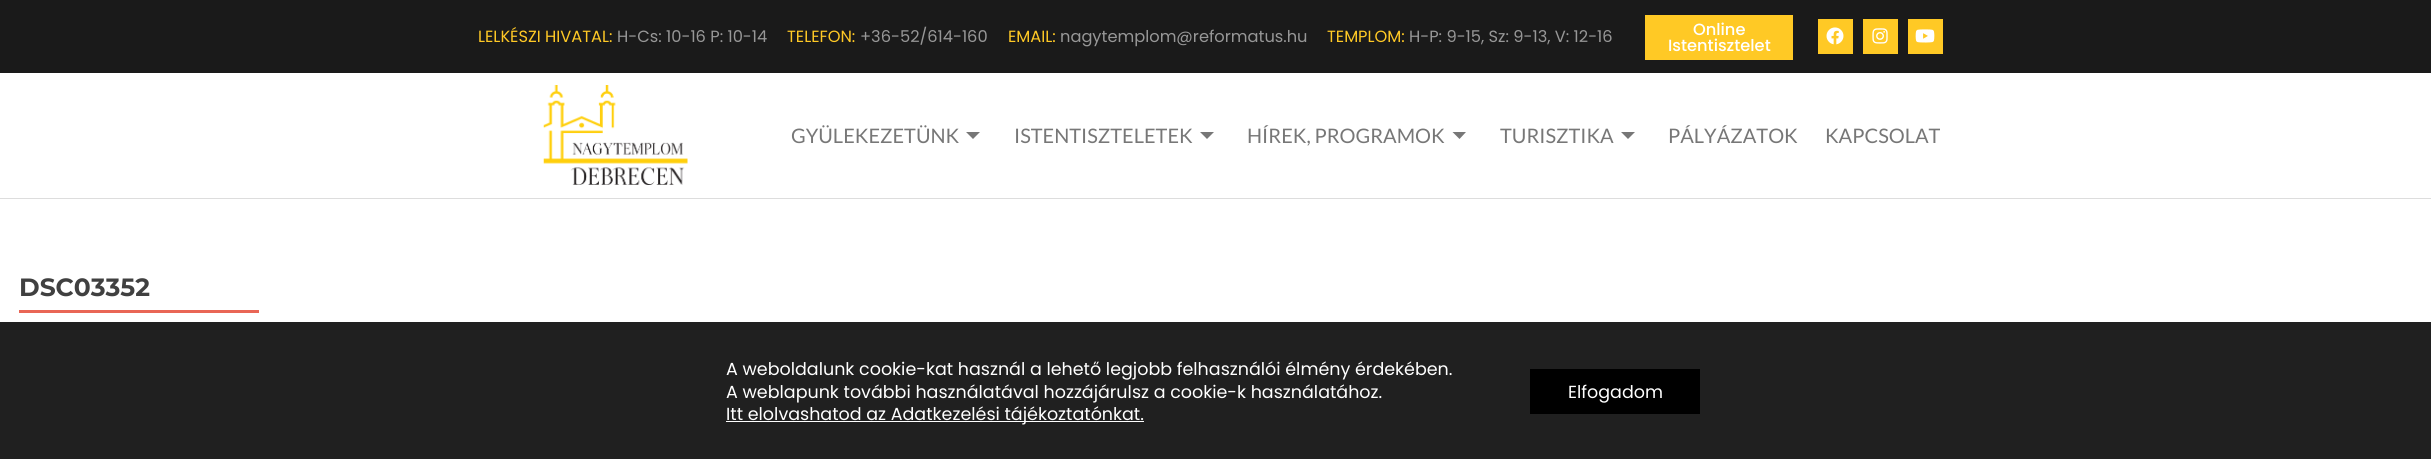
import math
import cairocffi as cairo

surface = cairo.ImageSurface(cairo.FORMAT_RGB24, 2431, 459)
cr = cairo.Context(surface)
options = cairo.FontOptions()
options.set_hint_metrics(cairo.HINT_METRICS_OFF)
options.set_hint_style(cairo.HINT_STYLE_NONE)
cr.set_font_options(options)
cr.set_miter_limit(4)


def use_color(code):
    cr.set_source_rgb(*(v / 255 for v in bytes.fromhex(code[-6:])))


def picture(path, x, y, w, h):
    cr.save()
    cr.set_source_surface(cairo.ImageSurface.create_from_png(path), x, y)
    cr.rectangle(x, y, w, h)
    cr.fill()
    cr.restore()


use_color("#ffffff")
cr.paint()
use_color("#1a1a1a")
cr.rectangle(0, 0, 2431, 73)
cr.fill()
cr.select_font_face("Poppins")
cr.set_font_size(16.25)
use_color("#ffc925")
cr.move_to(478, 42)
cr.show_text("LELKÉSZI HIVATAL:")
use_color("#979797")
cr.move_to(617, 42)
cr.show_text("H-Cs: 10-16 P: 10-14")
use_color("#ffc925")
cr.move_to(787, 42)
cr.show_text("TELEFON:")
use_color("#979797")
cr.move_to(860, 42)
cr.show_text("+36-52/614-160")
use_color("#ffc925")
cr.move_to(1008, 42)
cr.show_text("EMAIL:")
use_color("#979797")
cr.move_to(1060, 42)
cr.show_text("nagytemplom@reformatus.hu")
use_color("#ffc925")
cr.move_to(1327, 42)
cr.show_text("TEMPLOM:")
use_color("#979797")
cr.move_to(1409, 42)
cr.show_text("H-P: 9-15, Sz: 9-13, V: 12-16")
use_color("#ffc925")
cr.rectangle(1645, 15, 148, 45)
cr.fill()
cr.select_font_face("Poppins Medium")
use_color("#ffffff")
cr.move_to(1693, 35)
cr.show_text("Online")
cr.move_to(1668, 51)
cr.show_text("Istentisztelet")
use_color("#ffc925")
cr.rectangle(1818, 19, 35, 35)
cr.fill()
picture("img1.png", 1826, 27, 18, 18)
cr.rectangle(1863, 19, 35, 35)
cr.fill()
picture("img2.png", 1872, 28, 16, 16)
cr.rectangle(1908, 19, 35, 35)
cr.fill()
picture("img3.png", 1915, 29, 20, 14)
use_color("#dddddd")
cr.rectangle(0, 198, 2431, 1)
cr.fill()
picture("img4.png", 543, 85, 145, 100)
cr.select_font_face("Lato")
cr.set_font_size(20)
use_color("#777777")
cr.move_to(791, 143)
cr.show_text("GYÜLEKEZETÜNK")
cr.new_path()
cr.move_to(966, 132)
cr.line_to(980, 132)
cr.line_to(973, 139)
cr.close_path()
cr.fill()
cr.move_to(1014, 143)
cr.show_text("ISTENTISZTELETEK")
cr.new_path()
cr.move_to(1200, 132)
cr.line_to(1214, 132)
cr.line_to(1207, 139)
cr.close_path()
cr.fill()
cr.move_to(1247, 143)
cr.show_text("HÍREK, PROGRAMOK")
cr.new_path()
cr.move_to(1452.5, 132)
cr.line_to(1466, 132)
cr.line_to(1459.5, 139)
cr.close_path()
cr.fill()
cr.move_to(1500, 143)
cr.show_text("TURISZTIKA")
cr.new_path()
cr.move_to(1621, 132)
cr.line_to(1635, 132)
cr.line_to(1628, 139)
cr.close_path()
cr.fill()
cr.move_to(1668, 143)
cr.show_text("PÁLYÁZATOK")
cr.move_to(1825, 143)
cr.show_text("KAPCSOLAT")
cr.select_font_face("Montserrat", cairo.FONT_SLANT_NORMAL, cairo.FONT_WEIGHT_BOLD)
cr.set_font_size(25)
use_color("#404040")
cr.move_to(19, 296)
cr.show_text("DSC03352")
use_color("#e96656")
cr.rectangle(19, 310, 240, 3)
cr.fill()
use_color("#202020")
cr.rectangle(0, 322, 2431, 137)
cr.fill()
cr.select_font_face("Poppins")
cr.set_font_size(17.5)
use_color("#ffffff")
cr.move_to(726, 375)
cr.show_text("A weboldalunk cookie-kat használ a lehető legjobb felhasználói élmény érdekében.")
cr.move_to(726, 398)
cr.show_text("A weblapunk további használatával hozzájárulsz a cookie-k használatához.")
cr.rectangle(726, 421, 418, 1)
cr.fill()
cr.move_to(726, 420)
cr.show_text("Itt elolvashatod az Adatkezelési tájékoztatónkat.")
use_color("#000000")
cr.rectangle(1530, 369, 170, 45)
cr.fill()
use_color("#ffffff")
cr.move_to(1568, 398)
cr.show_text("Elfogadom")
surface.write_to_png("result.png")
